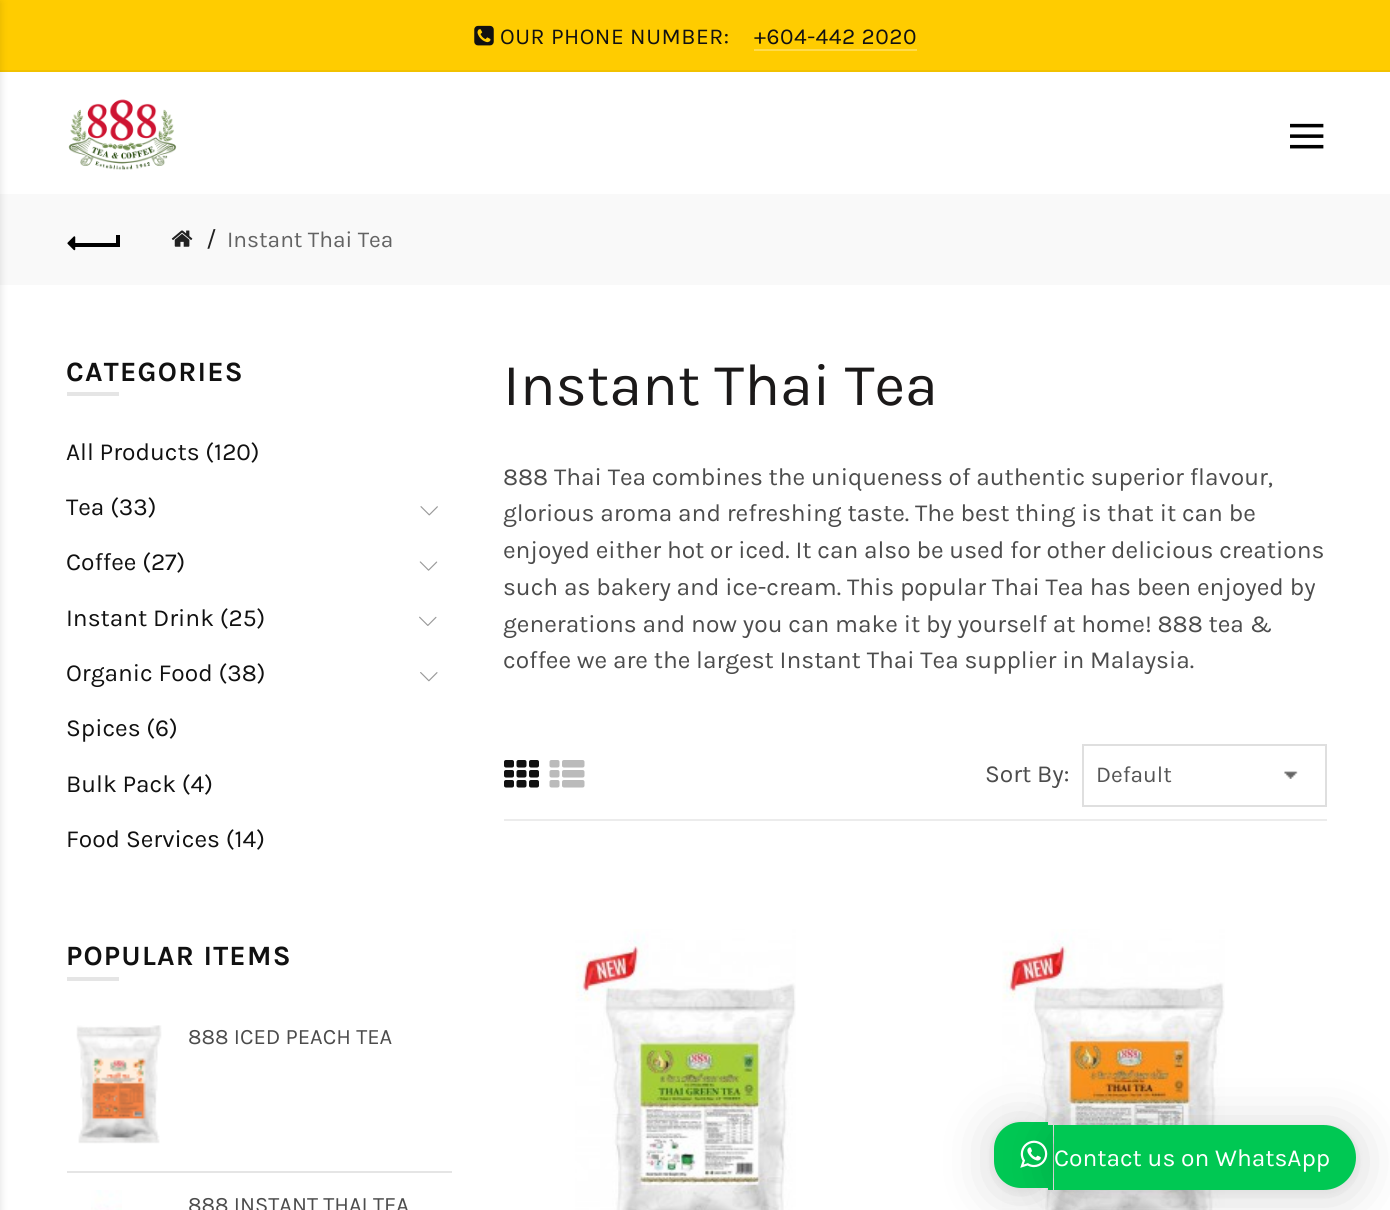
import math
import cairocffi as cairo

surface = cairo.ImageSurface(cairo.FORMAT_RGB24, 1390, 1210)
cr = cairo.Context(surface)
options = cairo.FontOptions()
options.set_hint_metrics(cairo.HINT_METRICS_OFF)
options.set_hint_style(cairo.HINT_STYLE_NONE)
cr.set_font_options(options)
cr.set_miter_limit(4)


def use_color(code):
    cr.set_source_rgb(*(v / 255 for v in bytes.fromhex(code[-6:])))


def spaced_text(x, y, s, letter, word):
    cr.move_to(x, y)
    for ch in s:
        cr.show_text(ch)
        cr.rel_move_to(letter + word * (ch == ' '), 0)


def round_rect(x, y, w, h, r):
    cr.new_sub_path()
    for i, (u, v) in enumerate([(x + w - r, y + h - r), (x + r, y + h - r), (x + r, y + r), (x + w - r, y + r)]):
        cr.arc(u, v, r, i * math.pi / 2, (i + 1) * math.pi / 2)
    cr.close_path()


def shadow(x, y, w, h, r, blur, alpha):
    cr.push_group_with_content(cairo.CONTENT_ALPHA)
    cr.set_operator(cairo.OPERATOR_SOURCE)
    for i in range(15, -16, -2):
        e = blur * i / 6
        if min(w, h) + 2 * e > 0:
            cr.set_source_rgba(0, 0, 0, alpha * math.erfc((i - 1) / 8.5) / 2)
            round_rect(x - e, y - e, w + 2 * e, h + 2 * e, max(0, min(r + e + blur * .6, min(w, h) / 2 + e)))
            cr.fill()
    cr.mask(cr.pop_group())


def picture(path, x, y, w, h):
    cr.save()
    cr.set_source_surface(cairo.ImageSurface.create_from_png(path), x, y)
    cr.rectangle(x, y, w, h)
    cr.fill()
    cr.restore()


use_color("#ffffff")
cr.paint()
use_color("#ffcc00")
cr.rectangle(0, 0, 1390, 70)
cr.fill()
use_color("#f2c200")
cr.rectangle(0, 70, 1390, 2)
cr.fill()
use_color("#f9f9f9")
cr.rectangle(0, 194, 1390, 91)
cr.fill()
use_color("#000000")
shadow(-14, 2, 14, 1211, 0, 4.5, 0.13)
picture("img1.png", 474, 25, 20, 21)
cr.select_font_face("Karla")
cr.set_font_size(22.75)
use_color("#111111")
spaced_text(500, 44, "OUR PHONE NUMBER:", 0.5, 0)
spaced_text(754, 44, "+604-442 2020", 0.5, 0)
use_color("#ffdb4d")
cr.rectangle(754, 49, 163, 2)
cr.fill()
picture("img2.png", 68, 99, 109, 71)
picture("img3.png", 1290, 123, 34, 26)
use_color("#000000")
cr.rectangle(74, 243, 43, 4)
cr.fill()
picture("img4.png", 67, 236, 9, 15)
cr.rectangle(116, 235, 4, 12)
cr.fill()
picture("img5.png", 171, 230, 22, 17)
cr.set_font_size(24.5)
use_color("#222222")
cr.move_to(206, 247)
cr.show_text("/")
cr.set_font_size(22.75)
use_color("#636363")
cr.move_to(227, 247)
cr.show_text("Instant Thai Tea")
cr.select_font_face("Karla", cairo.FONT_SLANT_NORMAL, cairo.FONT_WEIGHT_BOLD)
cr.set_font_size(28)
use_color("#111111")
spaced_text(66, 381, "CATEGORIES", 1.25, 0)
use_color("#e5e5e5")
cr.rectangle(67, 392, 52, 4)
cr.fill()
cr.select_font_face("Karla")
cr.set_font_size(24.5)
use_color("#111111")
cr.move_to(66, 460)
cr.show_text("All Products (120)")
cr.move_to(66, 515)
cr.show_text("Tea (33)")
picture("img6.png", 420, 506, 18, 10)
cr.move_to(66, 570)
cr.show_text("Coffee (27)")
picture("img7.png", 419, 561, 19, 10)
cr.move_to(66, 626)
cr.show_text("Instant Drink (25)")
picture("img8.png", 419, 616, 18, 10)
cr.move_to(66, 681)
cr.show_text("Organic Food (38)")
picture("img9.png", 420, 672, 18, 10)
cr.move_to(66, 736)
cr.show_text("Spices (6)")
cr.move_to(66, 792)
cr.show_text("Bulk Pack (4)")
cr.move_to(66, 847)
cr.show_text("Food Services (14)")
cr.select_font_face("Karla", cairo.FONT_SLANT_NORMAL, cairo.FONT_WEIGHT_BOLD)
cr.set_font_size(28)
spaced_text(66, 965, "POPULAR ITEMS", 1.25, 0)
use_color("#e5e5e5")
cr.rectangle(67, 977, 52, 4)
cr.fill()
cr.rectangle(67, 1171, 385, 2)
cr.fill()
picture("img10.png", 76, 1025, 86, 119)
cr.select_font_face("Karla")
cr.set_font_size(22)
use_color("#4c4c4c")
cr.move_to(188, 1044)
cr.show_text("888 ICED PEACH TEA")
picture("img11.png", 91, 1190, 31, 20)
cr.move_to(188, 1212)
cr.show_text("888 INSTANT THAI TEA")
cr.set_font_size(59.5)
use_color("#1b1919")
cr.move_to(503, 405)
cr.show_text("Instant Thai Tea")
cr.set_font_size(24.5)
use_color("#4c4c4c")
cr.move_to(503, 485)
cr.show_text("888 Thai Tea combines the uniqueness of authentic superior flavour,")
cr.move_to(503, 521)
cr.show_text("glorious aroma and refreshing taste. The best thing is that it can be")
cr.move_to(503, 558)
cr.show_text("enjoyed either hot or iced. It can also be used for other delicious creations")
cr.move_to(503, 595)
cr.show_text("such as bakery and ice-cream. This popular Thai Tea has been enjoyed by")
cr.move_to(503, 632)
cr.show_text("generations and now you can make it by yourself at home! 888 tea &")
cr.move_to(503, 668)
cr.show_text("coffee we are the largest Instant Thai Tea supplier in Malaysia.")
use_color("#ececec")
cr.rectangle(504, 819, 823, 2)
cr.fill()
picture("img12.png", 504, 760, 35, 28)
picture("img13.png", 549, 760, 36, 28)
use_color("#4c4c4c")
cr.move_to(985, 782)
cr.show_text("Sort By:")
picture("img14.png", 1284, 771, 14, 8)
cr.rectangle(1083, 745, 243, 61)
use_color("#dfdfdf")
cr.stroke()
cr.set_font_size(22.75)
use_color("#555555")
cr.move_to(1096, 782)
cr.show_text("Default")
picture("img15.png", 575, 929, 221, 281)
picture("img16.png", 1002, 929, 223, 281)
use_color("#000000")
shadow(994, 1125, 54, 67, 27, 28, 0.16)
shadow(994, 1124, 54, 66, 27, 5, 0.06)
use_color("#00c853")
cr.new_path()
cr.move_to(1021, 1122)
cr.line_to(1048, 1122)
cr.line_to(1048, 1188)
cr.line_to(1021, 1188)
cr.curve_to(1006, 1188, 994, 1176, 994, 1161)
cr.line_to(994, 1149)
cr.curve_to(994, 1134, 1006, 1122, 1021, 1122)
cr.close_path()
cr.fill()
cr.rectangle(1048, 1125, 5, 65)
cr.fill()
use_color("#000000")
shadow(1054, 1129, 302, 65, 32.5, 28, 0.16)
shadow(1054, 1127, 302, 65, 32.5, 5, 0.06)
use_color("#00c853")
cr.new_path()
cr.move_to(1054, 1125)
cr.line_to(1323.5, 1125)
cr.curve_to(1341.5, 1125, 1356, 1139.5, 1356, 1157.5)
cr.curve_to(1356, 1175.5, 1341.5, 1190, 1323.5, 1190)
cr.line_to(1054, 1190)
cr.close_path()
cr.fill()
picture("img17.png", 1020, 1140, 28, 28)
cr.set_font_size(24.5)
use_color("#ffffff")
cr.move_to(1054, 1166)
cr.show_text("Contact us on WhatsApp")
surface.write_to_png("result.png")
